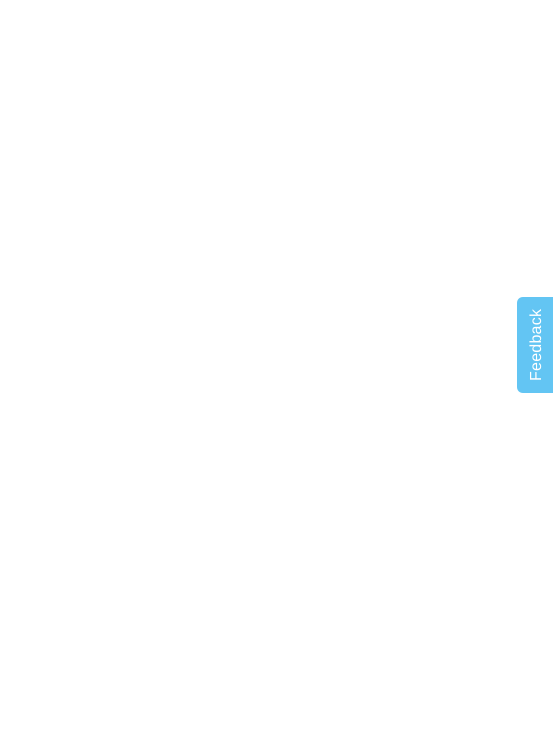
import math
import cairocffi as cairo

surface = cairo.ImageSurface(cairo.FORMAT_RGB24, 553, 730)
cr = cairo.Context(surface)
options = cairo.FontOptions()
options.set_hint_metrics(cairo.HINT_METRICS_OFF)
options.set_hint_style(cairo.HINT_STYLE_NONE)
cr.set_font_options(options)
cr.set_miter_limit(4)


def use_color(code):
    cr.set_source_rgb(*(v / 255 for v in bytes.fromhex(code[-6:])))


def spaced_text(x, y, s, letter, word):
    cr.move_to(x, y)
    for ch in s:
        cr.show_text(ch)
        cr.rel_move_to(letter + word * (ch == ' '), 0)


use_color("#ffffff")
cr.paint()
use_color("#63c5f3")
cr.new_path()
cr.move_to(523, 297)
cr.line_to(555, 297)
cr.line_to(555, 393)
cr.line_to(523, 393)
cr.curve_to(519.5, 393, 517, 390.5, 517, 387)
cr.line_to(517, 303)
cr.curve_to(517, 299.5, 519.5, 297, 523, 297)
cr.close_path()
cr.fill()
cr.select_font_face("Liberation Sans")
cr.set_font_size(16)
use_color("#ffffff")
cr.save()
cr.translate(541, 381)
cr.rotate(-90 * math.pi / 180)
spaced_text(0, 0, "Feedback", 0.25, 0)
cr.restore()
surface.write_to_png("result.png")
